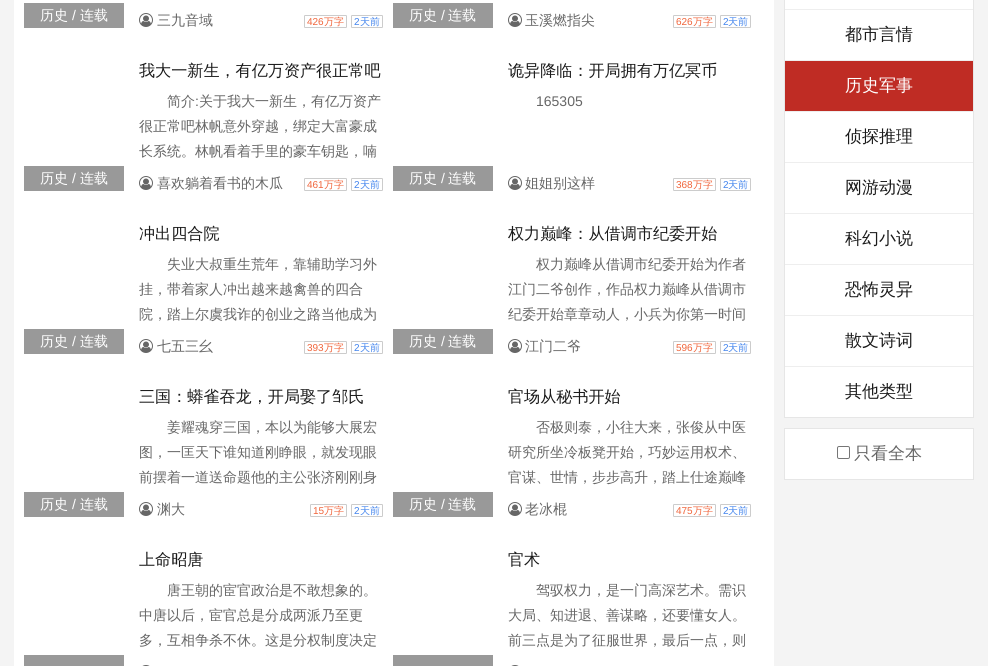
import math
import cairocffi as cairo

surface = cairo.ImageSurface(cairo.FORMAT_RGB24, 988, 666)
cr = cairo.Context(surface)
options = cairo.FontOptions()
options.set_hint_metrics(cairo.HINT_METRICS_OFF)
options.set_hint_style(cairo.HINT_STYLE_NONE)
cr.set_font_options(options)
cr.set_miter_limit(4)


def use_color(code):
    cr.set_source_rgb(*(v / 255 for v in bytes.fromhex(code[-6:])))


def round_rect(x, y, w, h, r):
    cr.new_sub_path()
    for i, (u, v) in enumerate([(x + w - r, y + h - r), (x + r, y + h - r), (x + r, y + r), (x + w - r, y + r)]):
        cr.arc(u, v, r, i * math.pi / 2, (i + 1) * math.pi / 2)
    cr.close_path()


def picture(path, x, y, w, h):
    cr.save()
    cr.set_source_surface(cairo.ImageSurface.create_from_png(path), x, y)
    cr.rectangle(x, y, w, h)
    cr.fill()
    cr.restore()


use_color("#f4f4f4")
cr.paint()
use_color("#ffffff")
cr.rectangle(14, 0, 760, 666)
cr.fill()
use_color("#999999")
cr.rectangle(24, 3, 100, 25)
cr.fill()
cr.select_font_face("WenQuanYi Zen Hei Medium")
cr.set_font_size(14)
use_color("#ffffff")
cr.move_to(40, 20)
cr.show_text("历史")
cr.select_font_face("Liberation Sans")
cr.move_to(72, 20)
cr.show_text("/")
cr.select_font_face("WenQuanYi Zen Hei Medium")
cr.move_to(80, 20)
cr.show_text("连载")
picture("img1.png", 139, 13, 14, 14)
use_color("#666666")
cr.move_to(157, 25)
cr.show_text("三九音域")
round_rect(304.5, 15.5, 42, 12, 0.5)
use_color("#cccccc")
cr.set_line_width(1)
cr.stroke()
cr.select_font_face("Liberation Sans")
cr.set_font_size(10)
use_color("#f0643a")
cr.move_to(307, 25)
cr.show_text("426")
cr.select_font_face("WenQuanYi Zen Hei Medium")
cr.move_to(324, 25)
cr.show_text("万字")
round_rect(351.5, 15.5, 31, 12, 0.5)
use_color("#cccccc")
cr.stroke()
cr.select_font_face("Liberation Sans")
use_color("#4284ed")
cr.move_to(354, 25)
cr.show_text("2")
cr.select_font_face("WenQuanYi Zen Hei Medium")
cr.move_to(360, 25)
cr.show_text("天前")
use_color("#999999")
cr.rectangle(393, 3, 100, 25)
cr.fill()
cr.set_font_size(14)
use_color("#ffffff")
cr.move_to(409, 20)
cr.show_text("历史")
cr.select_font_face("Liberation Sans")
cr.move_to(441, 20)
cr.show_text("/")
cr.select_font_face("WenQuanYi Zen Hei Medium")
cr.move_to(448, 20)
cr.show_text("连载")
picture("img1.png", 508, 13, 14, 14)
use_color("#666666")
cr.move_to(525, 25)
cr.show_text("玉溪燃指尖")
round_rect(673.5, 15.5, 42, 12, 0.5)
use_color("#cccccc")
cr.stroke()
cr.select_font_face("Liberation Sans")
cr.set_font_size(10)
use_color("#f0643a")
cr.move_to(676, 25)
cr.show_text("626")
cr.select_font_face("WenQuanYi Zen Hei Medium")
cr.move_to(693, 25)
cr.show_text("万字")
round_rect(720.5, 15.5, 30, 12, 0.5)
use_color("#cccccc")
cr.stroke()
cr.select_font_face("Liberation Sans")
use_color("#4284ed")
cr.move_to(723, 25)
cr.show_text("2")
cr.select_font_face("WenQuanYi Zen Hei Medium")
cr.move_to(728, 25)
cr.show_text("天前")
use_color("#999999")
cr.rectangle(24, 166, 100, 25)
cr.fill()
cr.set_font_size(14)
use_color("#ffffff")
cr.move_to(40, 183)
cr.show_text("历史")
cr.select_font_face("Liberation Sans")
cr.move_to(72, 183)
cr.show_text("/")
cr.select_font_face("WenQuanYi Zen Hei Medium")
cr.move_to(80, 183)
cr.show_text("连载")
cr.set_font_size(16.1)
use_color("#1a1a1a")
cr.move_to(139, 76)
cr.show_text("我大一新生，有亿万资产很正常吧")
cr.set_font_size(14)
use_color("#666666")
cr.move_to(167, 106)
cr.show_text("简介")
cr.select_font_face("Liberation Sans")
cr.move_to(195, 106)
cr.show_text(":")
cr.select_font_face("WenQuanYi Zen Hei Medium")
cr.move_to(199, 106)
cr.show_text("关于我大一新生，有亿万资产")
cr.move_to(139, 131)
cr.show_text("很正常吧林帆意外穿越，绑定大富豪成")
cr.move_to(139, 156)
cr.show_text("长系统。林帆看着手里的豪车钥匙，喃")
picture("img1.png", 139, 176, 14, 14)
cr.move_to(157, 188)
cr.show_text("喜欢躺着看书的木瓜")
round_rect(304.5, 178.5, 42, 12, 0.5)
use_color("#cccccc")
cr.stroke()
cr.select_font_face("Liberation Sans")
cr.set_font_size(10)
use_color("#f0643a")
cr.move_to(307, 188)
cr.show_text("461")
cr.select_font_face("WenQuanYi Zen Hei Medium")
cr.move_to(324, 188)
cr.show_text("万字")
round_rect(351.5, 178.5, 31, 12, 0.5)
use_color("#cccccc")
cr.stroke()
cr.select_font_face("Liberation Sans")
use_color("#4284ed")
cr.move_to(354, 188)
cr.show_text("2")
cr.select_font_face("WenQuanYi Zen Hei Medium")
cr.move_to(360, 188)
cr.show_text("天前")
use_color("#999999")
cr.rectangle(393, 166, 100, 25)
cr.fill()
cr.set_font_size(14)
use_color("#ffffff")
cr.move_to(409, 183)
cr.show_text("历史")
cr.select_font_face("Liberation Sans")
cr.move_to(441, 183)
cr.show_text("/")
cr.select_font_face("WenQuanYi Zen Hei Medium")
cr.move_to(448, 183)
cr.show_text("连载")
cr.set_font_size(16.1)
use_color("#1a1a1a")
cr.move_to(508, 76)
cr.show_text("诡异降临：开局拥有万亿冥币")
cr.select_font_face("Liberation Sans")
cr.set_font_size(14)
use_color("#666666")
cr.move_to(536, 106)
cr.show_text("165305")
picture("img1.png", 508, 176, 14, 14)
cr.select_font_face("WenQuanYi Zen Hei Medium")
cr.move_to(525, 188)
cr.show_text("姐姐别这样")
round_rect(673.5, 178.5, 42, 12, 0.5)
use_color("#cccccc")
cr.stroke()
cr.select_font_face("Liberation Sans")
cr.set_font_size(10)
use_color("#f0643a")
cr.move_to(676, 188)
cr.show_text("368")
cr.select_font_face("WenQuanYi Zen Hei Medium")
cr.move_to(693, 188)
cr.show_text("万字")
round_rect(720.5, 178.5, 30, 12, 0.5)
use_color("#cccccc")
cr.stroke()
cr.select_font_face("Liberation Sans")
use_color("#4284ed")
cr.move_to(723, 188)
cr.show_text("2")
cr.select_font_face("WenQuanYi Zen Hei Medium")
cr.move_to(728, 188)
cr.show_text("天前")
use_color("#999999")
cr.rectangle(24, 329, 100, 25)
cr.fill()
cr.set_font_size(14)
use_color("#ffffff")
cr.move_to(40, 346)
cr.show_text("历史")
cr.select_font_face("Liberation Sans")
cr.move_to(72, 346)
cr.show_text("/")
cr.select_font_face("WenQuanYi Zen Hei Medium")
cr.move_to(80, 346)
cr.show_text("连载")
cr.set_font_size(16.1)
use_color("#1a1a1a")
cr.move_to(139, 239)
cr.show_text("冲出四合院")
cr.set_font_size(14)
use_color("#666666")
cr.move_to(167, 269)
cr.show_text("失业大叔重生荒年，靠辅助学习外")
cr.move_to(139, 294)
cr.show_text("挂，带着家人冲出越来越禽兽的四合")
cr.move_to(139, 319)
cr.show_text("院，踏上尔虞我诈的创业之路当他成为")
picture("img1.png", 139, 339, 14, 14)
cr.move_to(157, 351)
cr.show_text("七五三幺")
round_rect(304.5, 341.5, 42, 12, 0.5)
use_color("#cccccc")
cr.stroke()
cr.select_font_face("Liberation Sans")
cr.set_font_size(10)
use_color("#f0643a")
cr.move_to(307, 351)
cr.show_text("393")
cr.select_font_face("WenQuanYi Zen Hei Medium")
cr.move_to(324, 351)
cr.show_text("万字")
round_rect(351.5, 341.5, 31, 12, 0.5)
use_color("#cccccc")
cr.stroke()
cr.select_font_face("Liberation Sans")
use_color("#4284ed")
cr.move_to(354, 351)
cr.show_text("2")
cr.select_font_face("WenQuanYi Zen Hei Medium")
cr.move_to(360, 351)
cr.show_text("天前")
use_color("#999999")
cr.rectangle(393, 329, 100, 25)
cr.fill()
cr.set_font_size(14)
use_color("#ffffff")
cr.move_to(409, 346)
cr.show_text("历史")
cr.select_font_face("Liberation Sans")
cr.move_to(441, 346)
cr.show_text("/")
cr.select_font_face("WenQuanYi Zen Hei Medium")
cr.move_to(448, 346)
cr.show_text("连载")
cr.set_font_size(16.1)
use_color("#1a1a1a")
cr.move_to(508, 239)
cr.show_text("权力巅峰：从借调市纪委开始")
cr.set_font_size(14)
use_color("#666666")
cr.move_to(536, 269)
cr.show_text("权力巅峰从借调市纪委开始为作者")
cr.move_to(508, 294)
cr.show_text("江门二爷创作，作品权力巅峰从借调市")
cr.move_to(508, 319)
cr.show_text("纪委开始章章动人，小兵为你第一时间")
picture("img1.png", 508, 339, 14, 14)
cr.move_to(525, 351)
cr.show_text("江门二爷")
round_rect(673.5, 341.5, 42, 12, 0.5)
use_color("#cccccc")
cr.stroke()
cr.select_font_face("Liberation Sans")
cr.set_font_size(10)
use_color("#f0643a")
cr.move_to(676, 351)
cr.show_text("596")
cr.select_font_face("WenQuanYi Zen Hei Medium")
cr.move_to(693, 351)
cr.show_text("万字")
round_rect(720.5, 341.5, 30, 12, 0.5)
use_color("#cccccc")
cr.stroke()
cr.select_font_face("Liberation Sans")
use_color("#4284ed")
cr.move_to(723, 351)
cr.show_text("2")
cr.select_font_face("WenQuanYi Zen Hei Medium")
cr.move_to(728, 351)
cr.show_text("天前")
use_color("#999999")
cr.rectangle(24, 492, 100, 25)
cr.fill()
cr.set_font_size(14)
use_color("#ffffff")
cr.move_to(40, 509)
cr.show_text("历史")
cr.select_font_face("Liberation Sans")
cr.move_to(72, 509)
cr.show_text("/")
cr.select_font_face("WenQuanYi Zen Hei Medium")
cr.move_to(80, 509)
cr.show_text("连载")
cr.set_font_size(16.1)
use_color("#1a1a1a")
cr.move_to(139, 402)
cr.show_text("三国：蟒雀吞龙，开局娶了邹氏")
cr.set_font_size(14)
use_color("#666666")
cr.move_to(167, 432)
cr.show_text("姜耀魂穿三国，本以为能够大展宏")
cr.move_to(139, 457)
cr.show_text("图，一匡天下谁知道刚睁眼，就发现眼")
cr.move_to(139, 482)
cr.show_text("前摆着一道送命题他的主公张济刚刚身")
picture("img1.png", 139, 502, 14, 14)
cr.move_to(157, 514)
cr.show_text("渊大")
round_rect(310.5, 504.5, 36, 12, 0.5)
use_color("#cccccc")
cr.stroke()
cr.select_font_face("Liberation Sans")
cr.set_font_size(10)
use_color("#f0643a")
cr.move_to(313, 514)
cr.show_text("15")
cr.select_font_face("WenQuanYi Zen Hei Medium")
cr.move_to(324, 514)
cr.show_text("万字")
round_rect(351.5, 504.5, 31, 12, 0.5)
use_color("#cccccc")
cr.stroke()
cr.select_font_face("Liberation Sans")
use_color("#4284ed")
cr.move_to(354, 514)
cr.show_text("2")
cr.select_font_face("WenQuanYi Zen Hei Medium")
cr.move_to(360, 514)
cr.show_text("天前")
use_color("#999999")
cr.rectangle(393, 492, 100, 25)
cr.fill()
cr.set_font_size(14)
use_color("#ffffff")
cr.move_to(409, 509)
cr.show_text("历史")
cr.select_font_face("Liberation Sans")
cr.move_to(441, 509)
cr.show_text("/")
cr.select_font_face("WenQuanYi Zen Hei Medium")
cr.move_to(448, 509)
cr.show_text("连载")
cr.set_font_size(16.1)
use_color("#1a1a1a")
cr.move_to(508, 402)
cr.show_text("官场从秘书开始")
cr.set_font_size(14)
use_color("#666666")
cr.move_to(536, 432)
cr.show_text("否极则泰，小往大来，张俊从中医")
cr.move_to(508, 457)
cr.show_text("研究所坐冷板凳开始，巧妙运用权术、")
cr.move_to(508, 482)
cr.show_text("官谋、世情，步步高升，踏上仕途巅峰")
picture("img1.png", 508, 502, 14, 14)
cr.move_to(525, 514)
cr.show_text("老冰棍")
round_rect(673.5, 504.5, 42, 12, 0.5)
use_color("#cccccc")
cr.stroke()
cr.select_font_face("Liberation Sans")
cr.set_font_size(10)
use_color("#f0643a")
cr.move_to(676, 514)
cr.show_text("475")
cr.select_font_face("WenQuanYi Zen Hei Medium")
cr.move_to(693, 514)
cr.show_text("万字")
round_rect(720.5, 504.5, 30, 12, 0.5)
use_color("#cccccc")
cr.stroke()
cr.select_font_face("Liberation Sans")
use_color("#4284ed")
cr.move_to(723, 514)
cr.show_text("2")
cr.select_font_face("WenQuanYi Zen Hei Medium")
cr.move_to(728, 514)
cr.show_text("天前")
cr.set_font_size(16.1)
use_color("#1a1a1a")
cr.move_to(139, 565)
cr.show_text("上命昭唐")
cr.set_font_size(14)
use_color("#666666")
cr.move_to(167, 595)
cr.show_text("唐王朝的宦官政治是不敢想象的。")
cr.move_to(139, 620)
cr.show_text("中唐以后，宦官总是分成两派乃至更")
cr.move_to(139, 645)
cr.show_text("多，互相争杀不休。这是分权制度决定")
picture("img2.png", 142, 665, 8, 1)
use_color("#999999")
cr.rectangle(24, 655, 100, 11)
cr.fill()
cr.set_font_size(16.1)
use_color("#1a1a1a")
cr.move_to(508, 565)
cr.show_text("官术")
cr.set_font_size(14)
use_color("#666666")
cr.move_to(536, 595)
cr.show_text("驾驭权力，是一门高深艺术。需识")
cr.move_to(508, 620)
cr.show_text("大局、知进退、善谋略，还要懂女人。")
cr.move_to(508, 645)
cr.show_text("前三点是为了征服世界，最后一点，则")
picture("img2.png", 511, 665, 8, 1)
use_color("#999999")
cr.rectangle(393, 655, 100, 11)
cr.fill()
use_color("#ffffff")
cr.rectangle(784.5, -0.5, 189, 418)
cr.fill_preserve()
use_color("#e6e6e6")
cr.stroke()
use_color("#eeeeee")
cr.rectangle(785, 9, 188, 1)
cr.fill()
cr.rectangle(785, 60, 188, 1)
cr.fill()
cr.set_font_size(17)
use_color("#1a1a1a")
cr.move_to(845, 40)
cr.show_text("都市言情")
use_color("#eeeeee")
cr.rectangle(785, 111, 188, 1)
cr.fill()
use_color("#bf2c24")
cr.rectangle(785, 61, 188, 50)
cr.fill()
use_color("#ffffff")
cr.move_to(845, 91)
cr.show_text("历史军事")
use_color("#eeeeee")
cr.rectangle(785, 162, 188, 1)
cr.fill()
use_color("#1a1a1a")
cr.move_to(845, 142)
cr.show_text("侦探推理")
use_color("#eeeeee")
cr.rectangle(785, 213, 188, 1)
cr.fill()
use_color("#1a1a1a")
cr.move_to(845, 193)
cr.show_text("网游动漫")
use_color("#eeeeee")
cr.rectangle(785, 264, 188, 1)
cr.fill()
use_color("#1a1a1a")
cr.move_to(845, 244)
cr.show_text("科幻小说")
use_color("#eeeeee")
cr.rectangle(785, 315, 188, 1)
cr.fill()
use_color("#1a1a1a")
cr.move_to(845, 295)
cr.show_text("恐怖灵异")
use_color("#eeeeee")
cr.rectangle(785, 366, 188, 1)
cr.fill()
use_color("#1a1a1a")
cr.move_to(845, 346)
cr.show_text("散文诗词")
cr.move_to(845, 397)
cr.show_text("其他类型")
use_color("#ffffff")
cr.rectangle(784.5, 428.5, 189, 51)
cr.fill_preserve()
use_color("#e6e6e6")
cr.stroke()
round_rect(837.5, 446.5, 12, 12, 1.5)
use_color("#767676")
cr.stroke()
use_color("#666666")
cr.move_to(854, 459)
cr.show_text("只看全本")
surface.write_to_png("result.png")
